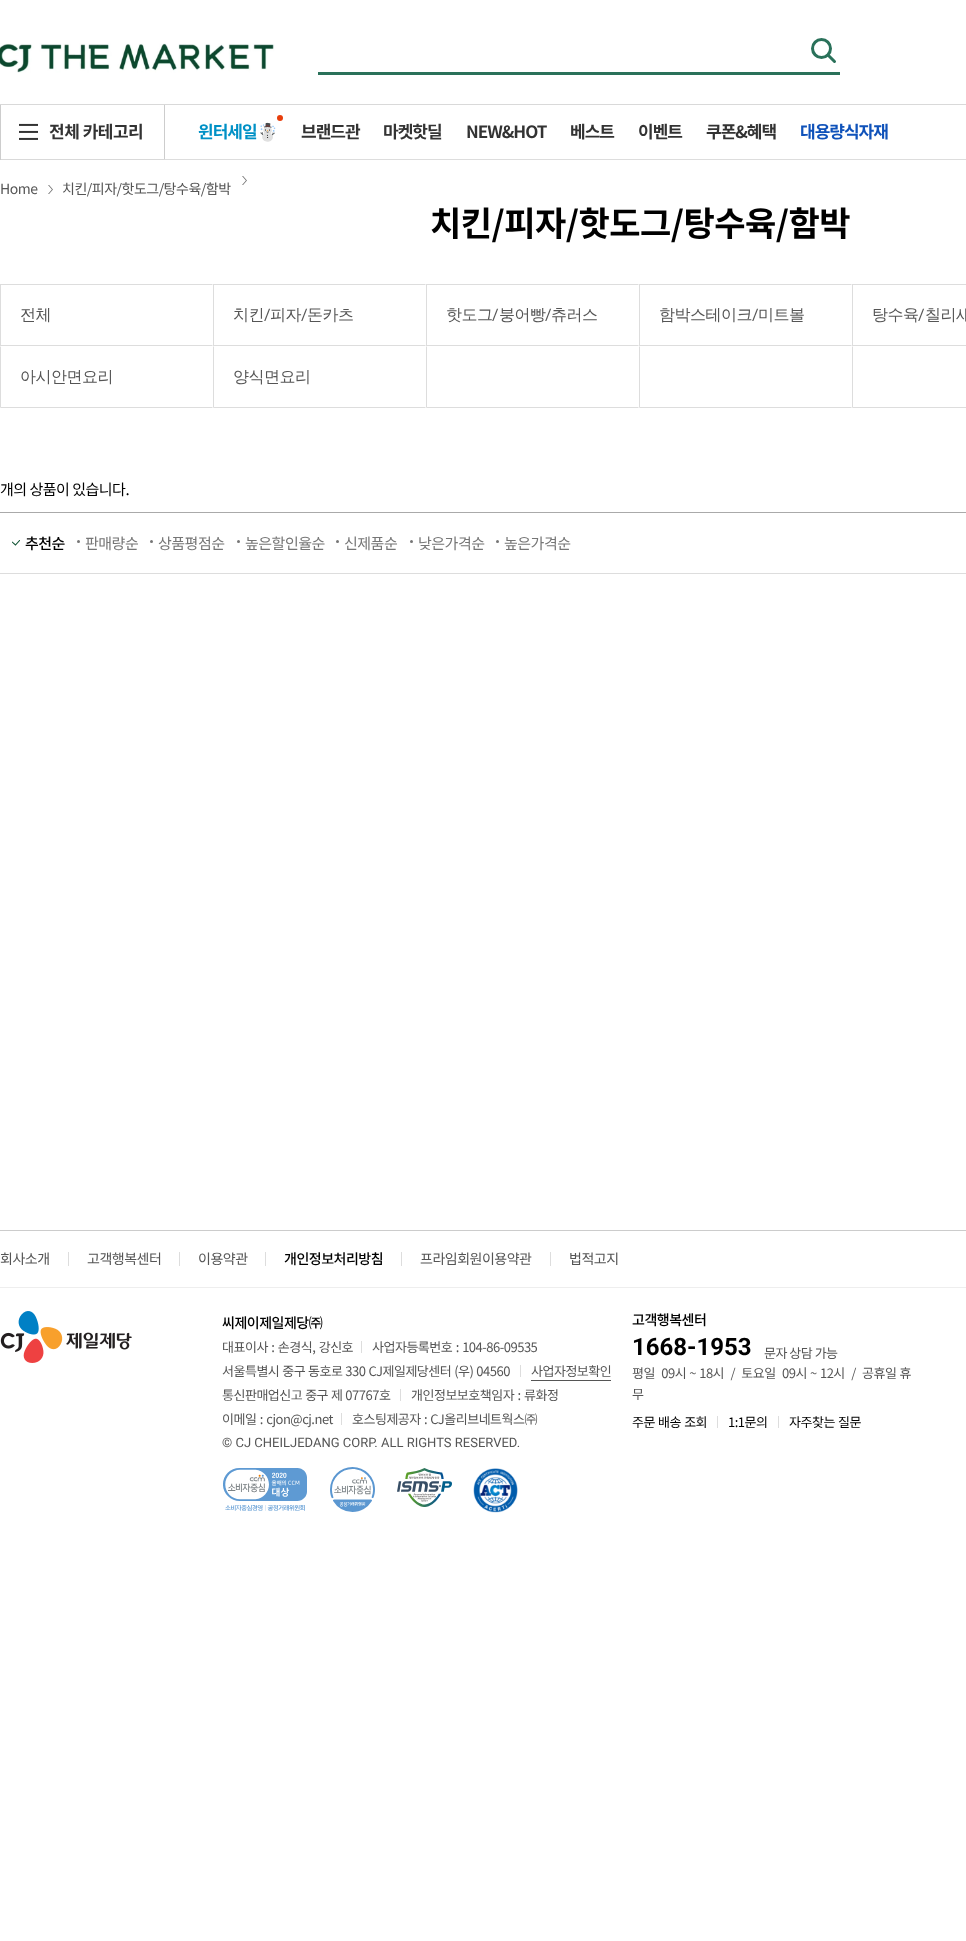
async function draw(canvas) {
	canvas.width = 966;
	canvas.height = 1941;
	const c = canvas.getContext('2d');
	c.miterLimit = 4;
	c.fontKerning = 'normal';
	async function loadImage(src) {
		const img = new Image();
		img.src = src;
		await img.decode();
		return img;
	}

	c.fillStyle = '#fff';
	c.fillRect(0, 0, 966, 1941);
	c.fillStyle = '#d9d9d9';
	c.fillRect(0, 104, 966, 1);
	c.drawImage(await loadImage('img1.png'), 0, 43, 275, 30);
	c.beginPath();
	c.moveTo(828.5, 55.5);
	c.lineTo(834.5, 61.5);
	c.strokeStyle = '#2a715a';
	c.lineWidth = 3;
	c.lineCap = 'round';
	c.stroke();
	c.beginPath();
	c.arc(821.5, 48.5, 9, 0, 2 * Math.PI);
	c.stroke();
	for (const [x, y, w, h, color] of [
		[318, 72, 522, 3, '#2a715a'],
		[165, 159, 801, 1, '#ddd'],
		[164, 105, 1, 55, '#cdcdcd'],
		[0, 159, 165, 1, '#d9d9d9'],
		[0, 105, 1, 55, '#cdcdcd'],
	]) {
		c.fillStyle = color;
		c.fillRect(x, y, w, h);
	}
	c.drawImage(await loadImage('img2.png'), 19, 123, 19, 17);
	c.letterSpacing = '-0.5px';
	c.font = 'bold 17px Noto Sans KR';
	c.fillStyle = '#333';
	c.fillText('전체 카테고리', 49, 138);
	c.fillStyle = '#e83e0c';
	c.beginPath();
	c.arc(280, 118, 3, 0, 2 * Math.PI);
	c.fill();
	c.letterSpacing = '-1px';
	c.fillStyle = '#0091c6';
	c.fillText('윈터세일', 198, 138);
	c.font = 'bold 17px Noto Color Emoji';
	c.fillText('☃️', 257, 138);
	c.font = 'bold 17px Noto Sans KR';
	c.fillStyle = '#333';
	for (const [text, x, y] of [
		['브랜드관', 301, 138],
		['마켓핫딜', 383, 138],
		['NEW&HOT', 466, 138],
		['베스트', 570, 138],
		['이벤트', 638, 138],
		['쿠폰&혜택', 706, 138],
	]) {
		c.fillText(text, x, y);
	}
	c.fillStyle = '#0f52ba';
	c.fillText('대용량식자재', 800, 138);
	c.drawImage(await loadImage('img3.png'), 242, 176, 5, 9);
	c.letterSpacing = '-0.5px';
	c.font = '14px Noto Sans KR';
	c.fillStyle = '#555';
	c.fillText('Home', 0, 194);
	c.drawImage(await loadImage('img3.png'), 48, 185, 5, 9);
	c.fillText('치킨/피자/핫도그/탕수육/함박', 62, 194);
	c.font = 'bold 34px Noto Sans KR';
	c.fillStyle = '#000';
	c.fillText('치킨/피자/핫도그/탕수육/함박', 430, 236);
	c.fillStyle = '#ddd';
	c.beginPath();
	c.moveTo(0, 284);
	c.lineTo(213, 284);
	c.lineTo(212, 285);
	c.lineTo(1, 285);
	c.closePath();
	c.fill();
	c.beginPath();
	c.moveTo(213, 346);
	c.lineTo(0, 346);
	c.lineTo(1, 345);
	c.lineTo(212, 345);
	c.closePath();
	c.fill();
	c.fillRect(0, 284, 1, 62);
	c.font = '500 16px WenQuanYi Zen Hei';
	c.fillStyle = '#555';
	c.fillText('전체', 20, 320);
	c.fillStyle = '#ddd';
	c.beginPath();
	c.moveTo(213, 284);
	c.lineTo(426, 284);
	c.lineTo(425, 285);
	c.lineTo(214, 285);
	c.closePath();
	c.fill();
	c.beginPath();
	c.moveTo(426, 346);
	c.lineTo(213, 346);
	c.lineTo(214, 345);
	c.lineTo(425, 345);
	c.closePath();
	c.fill();
	c.fillRect(213, 284, 1, 62);
	c.fillStyle = '#555';
	c.fillText('치킨', 233, 320);
	c.font = '16px Roboto';
	c.fillText('/', 264, 320);
	c.font = '500 16px WenQuanYi Zen Hei';
	c.fillText('피자', 270, 320);
	c.font = '16px Roboto';
	c.fillText('/', 301, 320);
	c.font = '500 16px WenQuanYi Zen Hei';
	c.fillText('돈카츠', 307, 320);
	c.fillStyle = '#ddd';
	c.beginPath();
	c.moveTo(426, 284);
	c.lineTo(639, 284);
	c.lineTo(638, 285);
	c.lineTo(427, 285);
	c.closePath();
	c.fill();
	c.beginPath();
	c.moveTo(639, 346);
	c.lineTo(426, 346);
	c.lineTo(427, 345);
	c.lineTo(638, 345);
	c.closePath();
	c.fill();
	c.fillRect(426, 284, 1, 62);
	c.fillStyle = '#555';
	c.fillText('핫도그', 446, 320);
	c.font = '16px Roboto';
	c.fillText('/', 492, 320);
	c.font = '500 16px WenQuanYi Zen Hei';
	c.fillText('붕어빵', 499, 320);
	c.font = '16px Roboto';
	c.fillText('/', 545, 320);
	c.font = '500 16px WenQuanYi Zen Hei';
	c.fillText('츄러스', 551, 320);
	c.fillStyle = '#ddd';
	c.beginPath();
	c.moveTo(639, 284);
	c.lineTo(852, 284);
	c.lineTo(851, 285);
	c.lineTo(640, 285);
	c.closePath();
	c.fill();
	c.beginPath();
	c.moveTo(852, 346);
	c.lineTo(639, 346);
	c.lineTo(640, 345);
	c.lineTo(851, 345);
	c.closePath();
	c.fill();
	c.fillRect(639, 284, 1, 62);
	c.fillStyle = '#555';
	c.fillText('함박스테이크', 659, 320);
	c.font = '16px Roboto';
	c.fillText('/', 752, 320);
	c.font = '500 16px WenQuanYi Zen Hei';
	c.fillText('미트볼', 758, 320);
	c.fillStyle = '#ddd';
	c.beginPath();
	c.moveTo(852, 284);
	c.lineTo(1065, 284);
	c.lineTo(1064, 285);
	c.lineTo(853, 285);
	c.closePath();
	c.fill();
	c.beginPath();
	c.moveTo(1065, 346);
	c.lineTo(852, 346);
	c.lineTo(853, 345);
	c.lineTo(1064, 345);
	c.closePath();
	c.fill();
	c.fillRect(852, 284, 1, 62);
	c.fillStyle = '#555';
	c.fillText('탕수육', 872, 320);
	c.font = '16px Roboto';
	c.fillText('/', 918, 320);
	c.font = '500 16px WenQuanYi Zen Hei';
	c.fillText('칠리새', 925, 320);
	c.fillStyle = '#ddd';
	c.beginPath();
	c.moveTo(213, 408);
	c.lineTo(0, 408);
	c.lineTo(1, 407);
	c.lineTo(212, 407);
	c.closePath();
	c.fill();
	c.beginPath();
	c.moveTo(0, 408);
	c.lineTo(0, 346);
	c.lineTo(1, 347);
	c.lineTo(1, 407);
	c.closePath();
	c.fill();
	c.fillStyle = '#555';
	c.fillText('아시안면요리', 20, 382);
	c.fillStyle = '#ddd';
	c.beginPath();
	c.moveTo(426, 408);
	c.lineTo(213, 408);
	c.lineTo(214, 407);
	c.lineTo(425, 407);
	c.closePath();
	c.fill();
	c.beginPath();
	c.moveTo(213, 408);
	c.lineTo(213, 346);
	c.lineTo(214, 347);
	c.lineTo(214, 407);
	c.closePath();
	c.fill();
	c.fillStyle = '#555';
	c.fillText('양식면요리', 233, 382);
	c.fillStyle = '#ddd';
	c.beginPath();
	c.moveTo(639, 408);
	c.lineTo(426, 408);
	c.lineTo(427, 407);
	c.lineTo(638, 407);
	c.closePath();
	c.fill();
	c.beginPath();
	c.moveTo(426, 408);
	c.lineTo(426, 346);
	c.lineTo(427, 347);
	c.lineTo(427, 407);
	c.closePath();
	c.fill();
	c.beginPath();
	c.moveTo(852, 408);
	c.lineTo(639, 408);
	c.lineTo(640, 407);
	c.lineTo(851, 407);
	c.closePath();
	c.fill();
	c.beginPath();
	c.moveTo(639, 408);
	c.lineTo(639, 346);
	c.lineTo(640, 347);
	c.lineTo(640, 407);
	c.closePath();
	c.fill();
	c.beginPath();
	c.moveTo(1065, 408);
	c.lineTo(852, 408);
	c.lineTo(853, 407);
	c.lineTo(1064, 407);
	c.closePath();
	c.fill();
	c.beginPath();
	c.moveTo(852, 408);
	c.lineTo(852, 346);
	c.lineTo(853, 347);
	c.lineTo(853, 407);
	c.closePath();
	c.fill();
	c.font = '15px Noto Sans KR';
	c.fillStyle = '#000';
	c.fillText('개의 상품이 있습니다.', 0, 495);
	c.fillStyle = '#aaa';
	c.fillRect(0, 512, 966, 1);
	c.fillStyle = '#ddd';
	c.fillRect(0, 573, 966, 1);
	c.drawImage(await loadImage('img4.png'), 12, 540, 8, 6);
	c.font = '500 15px Noto Sans KR';
	c.fillStyle = '#000';
	c.fillText('추천순', 25, 549);
	c.fillStyle = '#767676';
	c.beginPath();
	c.arc(78.5, 541.5, 1.5, 0, 2 * Math.PI);
	c.fill();
	c.font = '15px Noto Sans KR';
	c.fillText('판매량순', 85, 549);
	c.beginPath();
	c.arc(151.5, 541.5, 1.5, 0, 2 * Math.PI);
	c.fill();
	c.fillText('상품평점순', 158, 549);
	c.beginPath();
	c.arc(238.5, 541.5, 1.5, 0, 2 * Math.PI);
	c.fill();
	c.fillText('높은할인율순', 245, 549);
	c.beginPath();
	c.arc(337.5, 541.5, 1.5, 0, 2 * Math.PI);
	c.fill();
	c.fillText('신제품순', 344, 549);
	c.beginPath();
	c.arc(411.5, 541.5, 1.5, 0, 2 * Math.PI);
	c.fill();
	c.fillText('낮은가격순', 418, 549);
	c.beginPath();
	c.arc(497.5, 541.5, 1.5, 0, 2 * Math.PI);
	c.fill();
	c.fillText('높은가격순', 504, 549);
	c.fillStyle = '#ccc';
	c.fillRect(0, 1230, 966, 1);
	c.fillStyle = '#eee';
	c.fillRect(0, 1287, 966, 1);
	c.font = '14px Noto Sans KR';
	c.fillStyle = '#555';
	c.fillText('회사소개', 0, 1264);
	c.fillStyle = '#ddd';
	c.fillRect(68, 1252, 1, 14);
	c.fillStyle = '#555';
	c.fillText('고객행복센터', 87, 1264);
	c.fillStyle = '#ddd';
	c.fillRect(179, 1252, 1, 14);
	c.fillStyle = '#555';
	c.fillText('이용약관', 198, 1264);
	c.fillStyle = '#ddd';
	c.fillRect(265, 1252, 1, 14);
	c.font = '500 14px Noto Sans KR';
	c.fillStyle = '#000';
	c.fillText('개인정보처리방침', 284, 1264);
	c.fillStyle = '#ddd';
	c.fillRect(401, 1252, 1, 14);
	c.font = '14px Noto Sans KR';
	c.fillStyle = '#555';
	c.fillText('프라임회원이용약관', 420, 1264);
	c.fillStyle = '#ddd';
	c.fillRect(550, 1252, 1, 14);
	c.fillStyle = '#555';
	c.fillText('법적고지', 569, 1264);
	c.drawImage(await loadImage('img5.png'), 0, 1311, 132, 52);
	c.font = '500 14px Noto Sans KR';
	c.fillStyle = '#000';
	c.fillText('씨제이제일제당㈜', 222, 1328);
	c.wordSpacing = '1px';
	c.font = '13px Noto Sans KR';
	c.fillStyle = '#555';
	c.fillText('대표이사 : 손경식, 강신호', 222, 1352);
	c.fillStyle = '#ddd';
	c.fillRect(361, 1341, 1, 12);
	c.fillStyle = '#555';
	c.fillText('사업자등록번호 : 104-86-09535', 372, 1352);
	c.wordSpacing = '0.5px';
	c.fillText('서울특별시 중구 동호로 330 CJ제일제당센터 (우) 04560', 222, 1376);
	c.fillStyle = '#ddd';
	c.fillRect(520, 1365, 1, 12);
	c.wordSpacing = '0px';
	c.fillStyle = '#555';
	c.fillText('사업자정보확인', 531, 1376);
	c.fillRect(531, 1380, 80, 1);
	c.wordSpacing = '0.5px';
	c.fillText('통신판매업신고 중구 제 07767호', 222, 1400);
	c.fillStyle = '#ddd';
	c.fillRect(400, 1389, 1, 12);
	c.wordSpacing = '1px';
	c.fillStyle = '#555';
	c.fillText('개인정보보호책임자 : 류화정', 411, 1400);
	c.fillText('이메일 : cjon@cj.net', 222, 1424);
	c.fillStyle = '#ddd';
	c.fillRect(341, 1413, 1, 12);
	c.wordSpacing = '0.75px';
	c.fillStyle = '#555';
	c.fillText('호스팅제공자 : CJ올리브네트웍스㈜', 352, 1424);
	c.letterSpacing = '0px';
	c.wordSpacing = '0px';
	c.font = '13px Roboto';
	c.fillText('© CJ CHEILJEDANG CORP. ALL RIGHTS RESERVED.', 222, 1447);
	c.drawImage(await loadImage('img6.png'), 223, 1468, 84, 43);
	c.drawImage(await loadImage('img7.png'), 330, 1467, 45, 45);
	c.drawImage(await loadImage('img8.png'), 397, 1468, 55, 39);
	c.drawImage(await loadImage('img9.png'), 473, 1468, 45, 45);
	c.letterSpacing = '-0.5px';
	c.font = '500 14px Noto Sans KR';
	c.fillStyle = '#000';
	c.fillText('고객행복센터', 632, 1325);
	c.letterSpacing = '0px';
	c.font = 'bold 24px Roboto';
	c.fillText('1668-1953', 632, 1355);
	c.letterSpacing = '-0.5px';
	c.font = '13px Noto Sans KR';
	c.fillStyle = '#555';
	c.fillText('문자 상담 가능', 764, 1358);
	c.wordSpacing = '0.75px';
	c.fillText('평일  09시 ~ 18시  /  토요일  09시 ~ 12시  /  공휴일 휴', 632, 1378);
	c.wordSpacing = '0px';
	c.fillText('무', 632, 1399);
	c.wordSpacing = '0.75px';
	c.fillStyle = '#000';
	c.fillText('주문 배송 조회', 632, 1427);
	c.fillStyle = '#ddd';
	c.fillRect(717, 1416, 1, 12);
	c.wordSpacing = '0px';
	c.fillStyle = '#000';
	c.fillText('1:1문의', 728, 1427);
	c.fillStyle = '#ddd';
	c.fillRect(778, 1416, 1, 12);
	c.wordSpacing = '0.75px';
	c.fillStyle = '#000';
	c.fillText('자주찾는 질문', 789, 1427);
}

draw(document.querySelector('canvas'));
